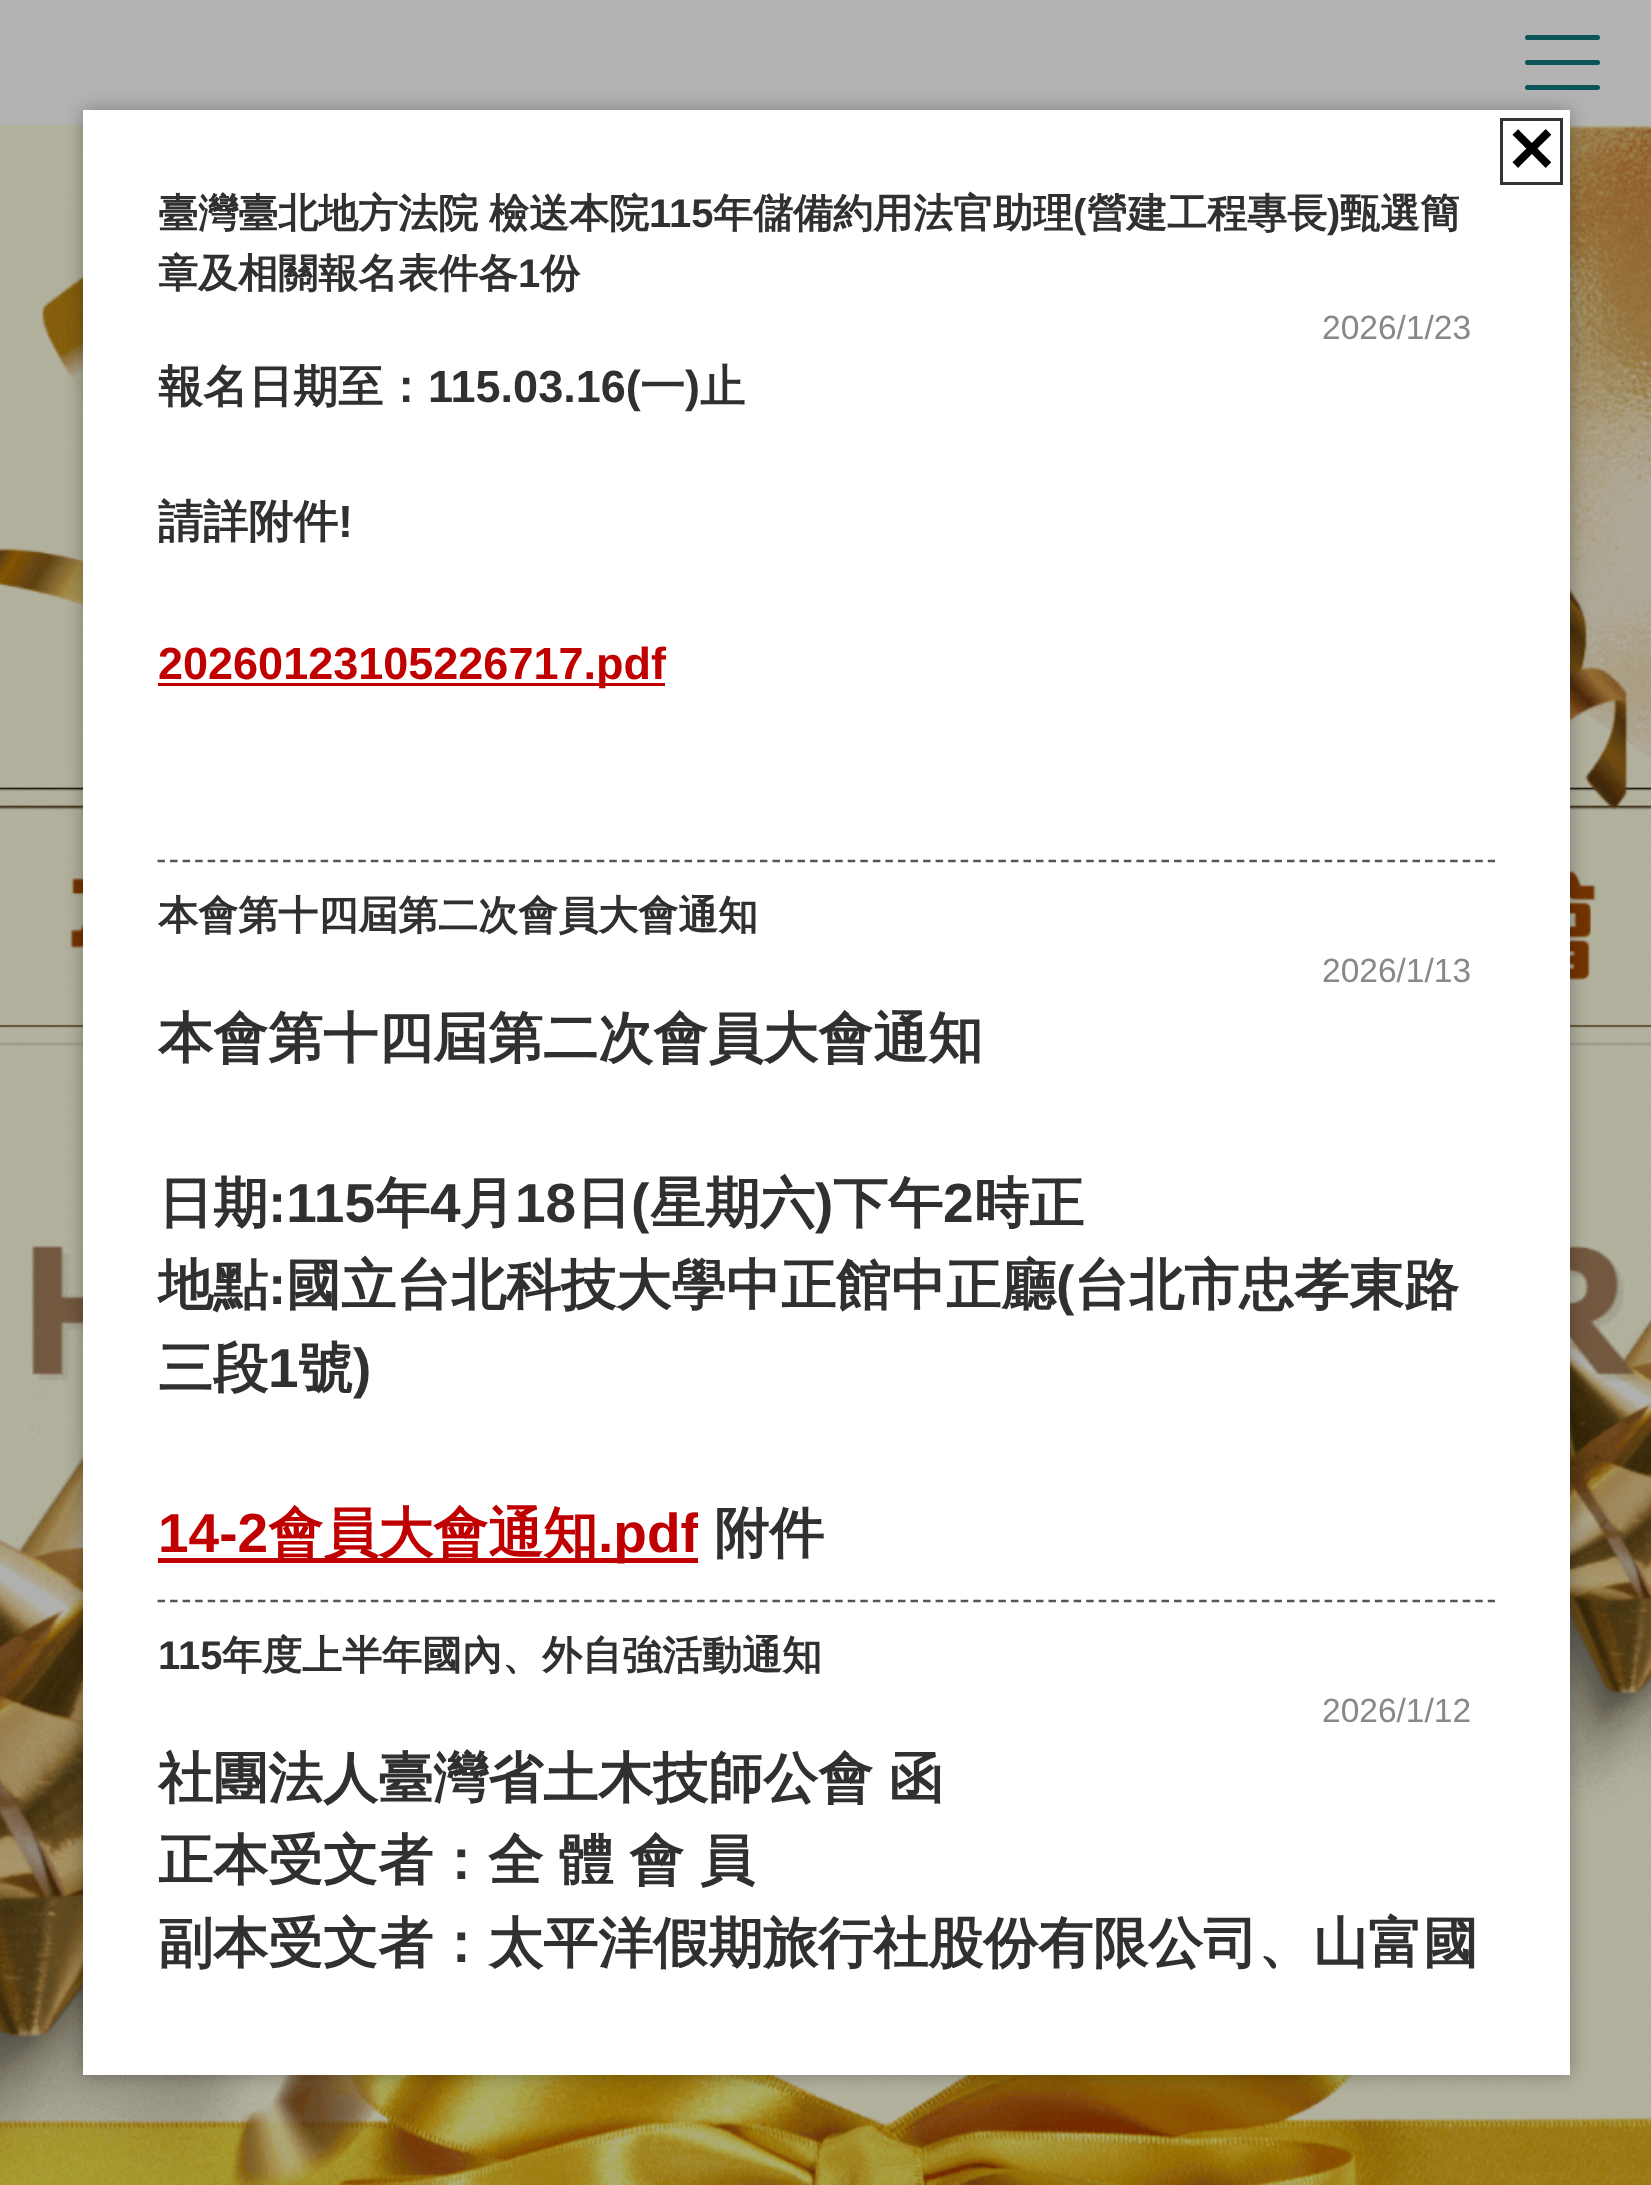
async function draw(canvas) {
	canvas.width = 1651;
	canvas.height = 2185;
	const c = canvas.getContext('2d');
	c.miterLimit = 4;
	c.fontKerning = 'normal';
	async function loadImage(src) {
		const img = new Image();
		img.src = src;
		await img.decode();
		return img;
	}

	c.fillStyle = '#b3b3b3';
	c.fillRect(0, 0, 1651, 2185);
	c.fillStyle = '#0b5558';
	c.beginPath();
	c.roundRect(1525, 60, 75, 5, 2.5);
	c.fill();
	c.beginPath();
	c.roundRect(1525, 35, 75, 5, 2.5);
	c.fill();
	c.beginPath();
	c.roundRect(1525, 85, 75, 5, 2.5);
	c.fill();
	c.drawImage(await loadImage('img1.png'), 0, 125, 1651, 2060);
	c.fillStyle = '#0000004d';
	c.filter = 'blur(9px)';
	c.beginPath();
	c.rect(83, 110, 1487, 1965);
	c.fill();
	c.filter = 'none';
	c.fillStyle = '#fff';
	c.fillRect(83, 110, 1487, 1965);
	c.strokeStyle = '#333';
	c.lineWidth = 3;
	c.strokeRect(1501.5, 119.5, 60, 64);
	c.font = 'bold 62px DejaVu Sans';
	c.fillStyle = '#000';
	c.fillText('✕', 1505, 172);
	c.wordSpacing = '-1px';
	c.font = 'bold 40px WenQuanYi Zen Hei';
	c.fillStyle = '#303030';
	c.fillText('臺灣臺北地方法院 檢送本院', 158, 227);
	c.wordSpacing = '0px';
	c.font = 'bold 40px Liberation Sans';
	c.fillText('115', 649, 227);
	c.font = 'bold 40px WenQuanYi Zen Hei';
	c.fillText('年儲備約用法官助理', 713, 227);
	c.font = 'bold 40px Liberation Sans';
	c.fillText('(', 1073, 227);
	c.font = 'bold 40px WenQuanYi Zen Hei';
	c.fillText('營建工程專長', 1087, 227);
	c.font = 'bold 40px Liberation Sans';
	c.fillText(')', 1327, 227);
	c.font = 'bold 40px WenQuanYi Zen Hei';
	c.fillText('甄選簡', 1340, 227);
	c.fillText('章及相關報名表件各', 158, 287);
	c.font = 'bold 40px Liberation Sans';
	c.fillText('1', 518, 287);
	c.font = 'bold 40px WenQuanYi Zen Hei';
	c.fillText('份', 540, 287);
	c.font = '33.5px Liberation Sans';
	c.fillStyle = '#888';
	c.fillText('2026/1/23', 1322, 339);
	c.font = 'bold 45px WenQuanYi Zen Hei';
	c.fillStyle = '#303030';
	c.fillText('報名日期至：', 158, 402);
	c.font = 'bold 45px Liberation Sans';
	c.fillText('115.03.16(', 428, 402);
	c.font = 'bold 45px WenQuanYi Zen Hei';
	c.fillText('一', 640, 402);
	c.font = 'bold 45px Liberation Sans';
	c.fillText(')', 685, 402);
	c.font = 'bold 45px WenQuanYi Zen Hei';
	c.fillText('止', 700, 402);
	c.fillText('請詳附件', 158, 537);
	c.font = 'bold 45px Liberation Sans';
	c.fillText('!', 338, 537);
	c.fillStyle = '#c00000';
	c.fillRect(158, 683, 507, 3);
	c.fillText('20260123105226717.pdf', 158, 679);
	c.beginPath();
	c.moveTo(157.5, 861);
	c.lineTo(1495, 861);
	c.strokeStyle = '#555';
	c.lineWidth = 2.5;
	c.setLineDash([7.5, 5.05]);
	c.stroke();
	c.font = 'bold 40px WenQuanYi Zen Hei';
	c.fillStyle = '#303030';
	c.fillText('本會第十四屆第二次會員大會通知', 158, 929);
	c.font = '33.5px Liberation Sans';
	c.fillStyle = '#888';
	c.fillText('2026/1/13', 1322, 982);
	c.font = 'bold 55px WenQuanYi Zen Hei';
	c.fillStyle = '#303030';
	c.fillText('本會第十四屆第二次會員大會通知', 158, 1057);
	c.fillText('日期', 158, 1222);
	c.font = 'bold 55px Liberation Sans';
	c.fillText(':115', 268, 1222);
	c.font = 'bold 55px WenQuanYi Zen Hei';
	c.fillText('年', 375, 1222);
	c.font = 'bold 55px Liberation Sans';
	c.fillText('4', 430, 1222);
	c.font = 'bold 55px WenQuanYi Zen Hei';
	c.fillText('月', 460, 1222);
	c.font = 'bold 55px Liberation Sans';
	c.fillText('18', 515, 1222);
	c.font = 'bold 55px WenQuanYi Zen Hei';
	c.fillText('日', 576, 1222);
	c.font = 'bold 55px Liberation Sans';
	c.fillText('(', 631, 1222);
	c.font = 'bold 55px WenQuanYi Zen Hei';
	c.fillText('星期六', 650, 1222);
	c.font = 'bold 55px Liberation Sans';
	c.fillText(')', 815, 1222);
	c.font = 'bold 55px WenQuanYi Zen Hei';
	c.fillText('下午', 833, 1222);
	c.font = 'bold 55px Liberation Sans';
	c.fillText('2', 943, 1222);
	c.font = 'bold 55px WenQuanYi Zen Hei';
	c.fillText('時正', 974, 1222);
	c.fillText('地點', 158, 1304);
	c.font = 'bold 55px Liberation Sans';
	c.fillText(':', 268, 1304);
	c.font = 'bold 55px WenQuanYi Zen Hei';
	c.fillText('國立台北科技大學中正館中正廳', 286, 1304);
	c.font = 'bold 55px Liberation Sans';
	c.fillText('(', 1056, 1304);
	c.font = 'bold 55px WenQuanYi Zen Hei';
	c.fillText('台北市忠孝東路', 1074, 1304);
	c.fillText('三段', 158, 1387);
	c.font = 'bold 55px Liberation Sans';
	c.fillText('1', 268, 1387);
	c.font = 'bold 55px WenQuanYi Zen Hei';
	c.fillText('號', 298, 1387);
	c.font = 'bold 55px Liberation Sans';
	c.fillText(')', 353, 1387);
	c.fillStyle = '#c00000';
	c.fillText('14-2', 158, 1552);
	c.fillRect(158, 1558, 540, 5);
	c.font = 'bold 55px WenQuanYi Zen Hei';
	c.fillText('會員大會通知', 268, 1552);
	c.font = 'bold 55px Liberation Sans';
	c.fillText('.pdf', 598, 1552);
	c.font = 'bold 55px WenQuanYi Zen Hei';
	c.fillStyle = '#303030';
	c.fillText('附件', 714, 1552);
	c.fillStyle = '#fff';
	c.fillRect(698, 1512, 1, 17);
	c.beginPath();
	c.moveTo(157.5, 1601);
	c.lineTo(1495, 1601);
	c.stroke();
	c.font = 'bold 40px Liberation Sans';
	c.fillStyle = '#303030';
	c.fillText('115', 158, 1669);
	c.font = 'bold 40px WenQuanYi Zen Hei';
	c.fillText('年度上半年國內、外自強活動通知', 222, 1669);
	c.font = '33.5px Liberation Sans';
	c.fillStyle = '#888';
	c.fillText('2026/1/12', 1322, 1722);
	c.wordSpacing = '-1px';
	c.font = 'bold 55px WenQuanYi Zen Hei';
	c.fillStyle = '#303030';
	c.fillText('社團法人臺灣省土木技師公會 函', 158, 1797);
	c.fillText('正本受文者：全 體 會 員', 158, 1879);
	c.wordSpacing = '0px';
	c.fillText('副本受文者：太平洋假期旅行社股份有限公司、山富國', 158, 1962);
}

draw(document.querySelector('canvas'));
